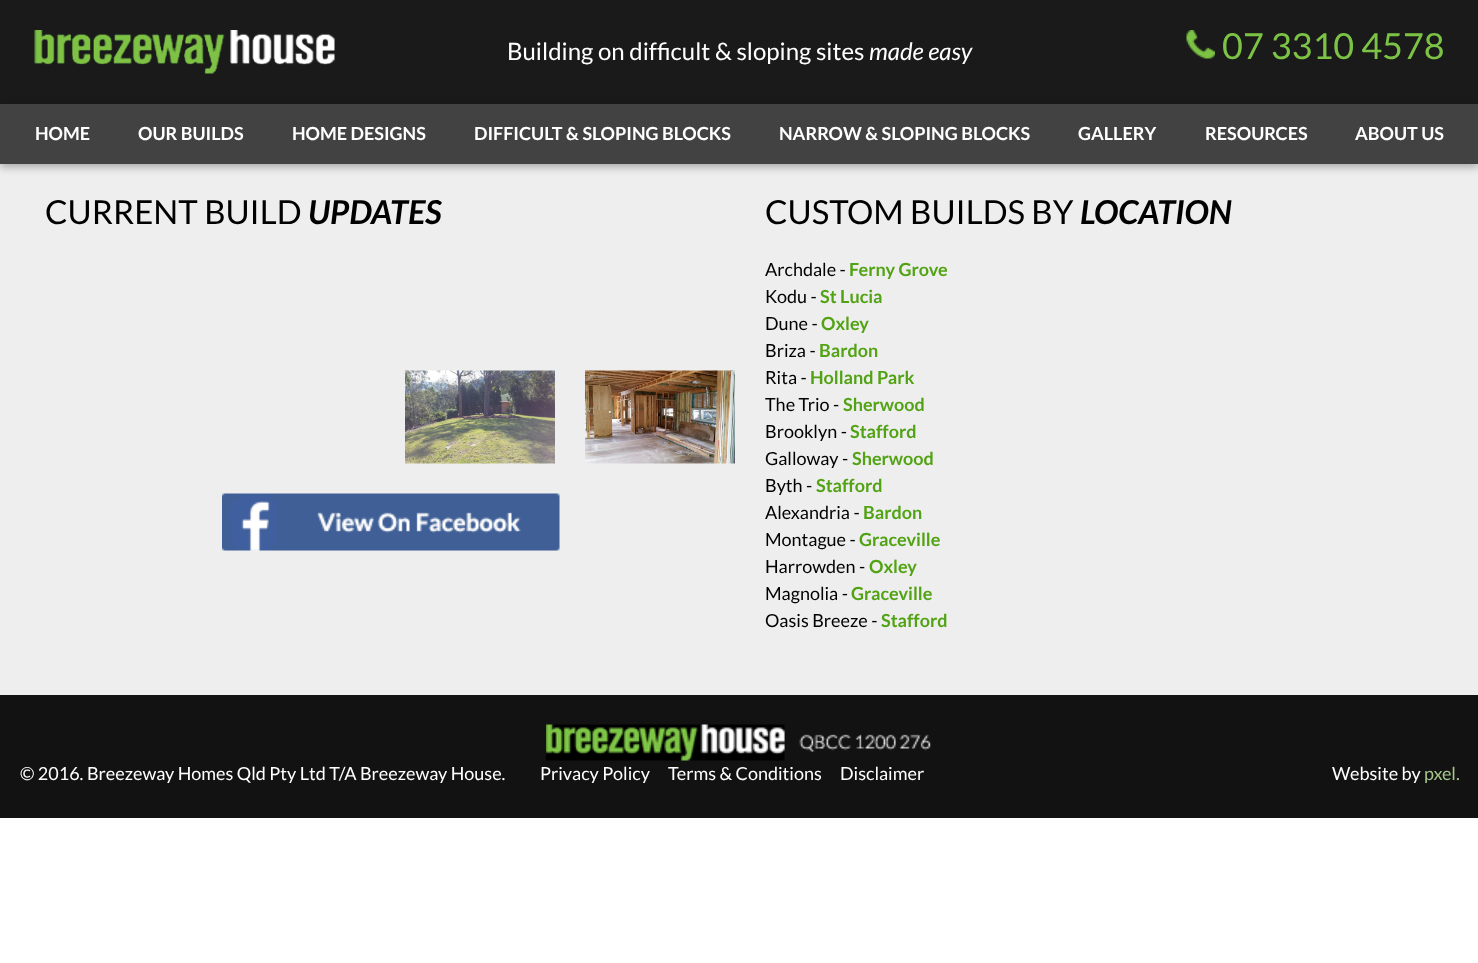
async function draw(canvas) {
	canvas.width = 1478;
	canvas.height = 963;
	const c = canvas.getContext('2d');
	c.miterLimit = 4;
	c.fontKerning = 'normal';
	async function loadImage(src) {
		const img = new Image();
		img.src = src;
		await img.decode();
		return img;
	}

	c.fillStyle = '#fff';
	c.fillRect(0, 0, 1478, 963);
	c.fillStyle = '#1a1a1a';
	c.fillRect(0, 0, 1478, 104);
	c.drawImage(await loadImage('img1.png'), 34, 30, 301, 44);
	c.font = '24px Lato';
	c.fillStyle = '#fff';
	c.fillText('Building on difficult & sloping sites', 507, 60);
	c.font = 'italic 24px Lato';
	c.fillText('made easy', 869, 60);
	c.drawImage(await loadImage('img2.png'), 1186, 30, 29, 29);
	c.font = '36px Lato';
	c.fillStyle = '#7cc345';
	c.fillText('07 3310 4578', 1222, 59);
	c.fillStyle = '#eee';
	c.fillRect(0, 164, 1478, 531);
	c.fillStyle = '#0000004d';
	c.filter = 'blur(4px)';
	c.beginPath();
	c.rect(0, 107, 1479, 60);
	c.fill();
	c.filter = 'none';
	c.fillStyle = '#424242';
	c.fillRect(0, 104, 1478, 60);
	c.font = 'bold 18px Lato';
	c.fillStyle = '#fff';
	for (const [text, x, y] of [
		['HOME', 35, 140],
		['OUR BUILDS', 138, 140],
		['HOME DESIGNS', 292, 140],
		['DIFFICULT & SLOPING BLOCKS', 474, 140],
		['NARROW & SLOPING BLOCKS', 779, 140],
		['GALLERY', 1078, 140],
		['RESOURCES', 1205, 140],
		['ABOUT US', 1355, 140],
	]) {
		c.fillText(text, x, y);
	}
	c.font = '33px Lato';
	c.fillStyle = '#000';
	c.fillText('CURRENT BUILD', 45, 224);
	c.font = 'italic bold 33px Lato';
	c.fillText('UPDATES', 308, 224);
	c.drawImage(await loadImage('img3.png'), 405, 370, 150, 94);
	c.drawImage(await loadImage('img4.png'), 585, 370, 150, 94);
	c.drawImage(await loadImage('img5.png'), 222, 493, 338, 58);
	c.font = '33px Lato';
	c.fillText('CUSTOM BUILDS BY', 765, 224);
	c.font = 'italic bold 33px Lato';
	c.fillText('LOCATION', 1080, 224);
	c.font = '18px Lato';
	c.fillText('Archdale -', 765, 276);
	c.font = 'bold 18px Lato';
	c.fillStyle = '#52a314';
	c.fillText('Ferny Grove', 849, 276);
	c.font = '18px Lato';
	c.fillStyle = '#000';
	c.fillText('Kodu -', 765, 303);
	c.font = 'bold 18px Lato';
	c.fillStyle = '#52a314';
	c.fillText('St Lucia', 820, 303);
	c.font = '18px Lato';
	c.fillStyle = '#000';
	c.fillText('Dune -', 765, 330);
	c.font = 'bold 18px Lato';
	c.fillStyle = '#52a314';
	c.fillText('Oxley', 821, 330);
	c.font = '18px Lato';
	c.fillStyle = '#000';
	c.fillText('Briza -', 765, 357);
	c.font = 'bold 18px Lato';
	c.fillStyle = '#52a314';
	c.fillText('Bardon', 819, 357);
	c.font = '18px Lato';
	c.fillStyle = '#000';
	c.fillText('Rita -', 765, 384);
	c.font = 'bold 18px Lato';
	c.fillStyle = '#52a314';
	c.fillText('Holland Park', 810, 384);
	c.font = '18px Lato';
	c.fillStyle = '#000';
	c.fillText('The Trio -', 765, 411);
	c.font = 'bold 18px Lato';
	c.fillStyle = '#52a314';
	c.fillText('Sherwood', 843, 411);
	c.font = '18px Lato';
	c.fillStyle = '#000';
	c.fillText('Brooklyn -', 765, 438);
	c.font = 'bold 18px Lato';
	c.fillStyle = '#52a314';
	c.fillText('Stafford', 850, 438);
	c.font = '18px Lato';
	c.fillStyle = '#000';
	c.fillText('Galloway -', 765, 465);
	c.font = 'bold 18px Lato';
	c.fillStyle = '#52a314';
	c.fillText('Sherwood', 852, 465);
	c.font = '18px Lato';
	c.fillStyle = '#000';
	c.fillText('Byth -', 765, 492);
	c.font = 'bold 18px Lato';
	c.fillStyle = '#52a314';
	c.fillText('Stafford', 816, 492);
	c.font = '18px Lato';
	c.fillStyle = '#000';
	c.fillText('Alexandria -', 765, 519);
	c.font = 'bold 18px Lato';
	c.fillStyle = '#52a314';
	c.fillText('Bardon', 863, 519);
	c.font = '18px Lato';
	c.fillStyle = '#000';
	c.fillText('Montague -', 765, 546);
	c.font = 'bold 18px Lato';
	c.fillStyle = '#52a314';
	c.fillText('Graceville', 859, 546);
	c.font = '18px Lato';
	c.fillStyle = '#000';
	c.fillText('Harrowden -', 765, 573);
	c.font = 'bold 18px Lato';
	c.fillStyle = '#52a314';
	c.fillText('Oxley', 869, 573);
	c.font = '18px Lato';
	c.fillStyle = '#000';
	c.fillText('Magnolia -', 765, 600);
	c.font = 'bold 18px Lato';
	c.fillStyle = '#52a314';
	c.fillText('Graceville', 851, 600);
	c.font = '18px Lato';
	c.fillStyle = '#000';
	c.fillText('Oasis Breeze -', 765, 627);
	c.font = 'bold 18px Lato';
	c.fillStyle = '#52a314';
	c.fillText('Stafford', 881, 627);
	c.fillStyle = '#121212';
	c.fillRect(0, 695, 1478, 123);
	c.drawImage(await loadImage('img6.png'), 546, 724, 385, 37);
	c.font = '18px Lato';
	c.fillStyle = '#fff';
	for (const [text, x, y] of [
		['© 2016. Breezeway Homes Qld Pty Ltd T/A Breezeway House.', 20, 780],
		['Privacy Policy', 540, 780],
		['Terms & Conditions', 668, 780],
		['Disclaimer', 840, 780],
		['Website by', 1332, 780],
	]) {
		c.fillText(text, x, y);
	}
	c.fillStyle = '#a5c58c';
	c.fillText('pxel.', 1424, 780);
}

draw(document.querySelector('canvas'));
